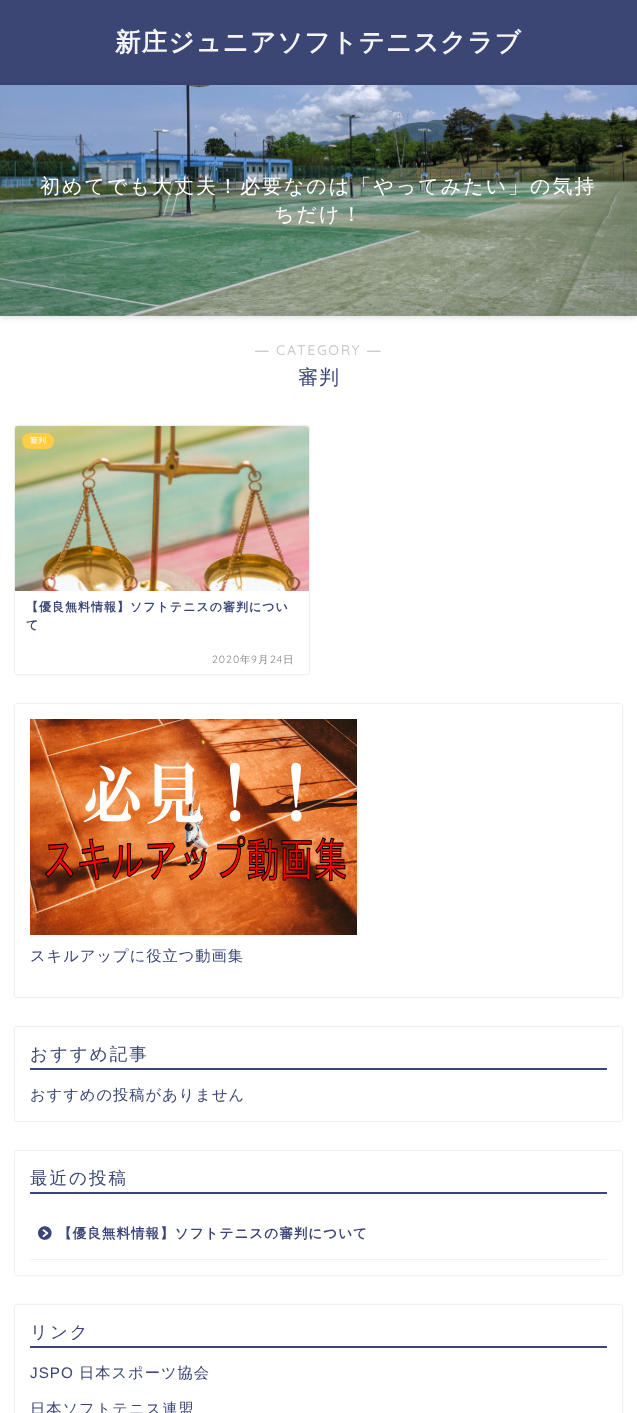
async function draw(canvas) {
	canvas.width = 637;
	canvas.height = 1413;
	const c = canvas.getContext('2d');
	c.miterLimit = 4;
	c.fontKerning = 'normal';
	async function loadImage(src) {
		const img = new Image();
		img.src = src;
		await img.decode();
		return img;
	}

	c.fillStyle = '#fff';
	c.fillRect(0, 0, 637, 1413);
	c.fillStyle = '#3b4675';
	c.fillRect(0, 0, 637, 85);
	c.letterSpacing = '1px';
	c.font = 'bold 25.6px WenQuanYi Zen Hei';
	c.fillStyle = '#f4f4f4';
	c.fillText('新庄ジュニアソフトテニスクラブ', 115, 51);
	c.fillStyle = '#00000026';
	c.filter = 'blur(3px)';
	c.beginPath();
	c.rect(0, 86, 637, 231);
	c.fill();
	c.filter = 'none';
	c.drawImage(await loadImage('img1.png'), 0, 85, 637, 231);
	c.letterSpacing = '2px';
	c.font = '500 20px WenQuanYi Zen Hei';
	c.fillStyle = '#fff';
	c.fillText('初めてでも大丈夫！必要なのは「やってみたい」の気持', 40, 193);
	c.fillText('ちだけ！', 274, 221);
	c.font = 'bold 13.6px Liberation Sans';
	c.fillStyle = '#ccc';
	c.fillText('―', 255, 355);
	c.font = 'bold 13.6px Quicksand';
	c.fillText('CATEGORY', 276, 355);
	c.font = 'bold 13.6px Liberation Sans';
	c.fillText('―', 367, 355);
	c.letterSpacing = '1px';
	c.font = '500 20px WenQuanYi Zen Hei';
	c.fillStyle = '#3b4675';
	c.fillText('審判', 298, 384);
	c.fillStyle = '#0000002e';
	c.filter = 'blur(1px)';
	c.beginPath();
	c.roundRect(15, 426, 294, 248, 2);
	c.fill();
	c.filter = 'none';
	c.fillStyle = '#fff';
	c.beginPath();
	c.roundRect(15, 426, 294, 248, 2);
	c.fill();
	c.drawImage(await loadImage('img2.png'), 15, 426, 294, 165);
	c.fillStyle = '#ffcd44';
	c.beginPath();
	c.roundRect(22, 433, 32, 16, 8);
	c.fill();
	c.letterSpacing = '0px';
	c.font = '500 8px WenQuanYi Zen Hei';
	c.fillStyle = '#fff';
	c.fillText('審判', 30, 443);
	c.letterSpacing = '1px';
	c.font = 'bold 12px WenQuanYi Zen Hei';
	c.fillStyle = '#3b4675';
	c.fillText('【優良無料情報】ソフトテニスの審判につい', 26, 611);
	c.fillText('て', 26, 629);
	c.font = '300 10.5px Quicksand';
	c.fillStyle = '#888';
	c.fillText('2020', 212, 663);
	c.font = '500 10.5px WenQuanYi Zen Hei';
	c.fillText('年', 240, 663);
	c.font = '300 10.5px Quicksand';
	c.fillText('9', 251, 663);
	c.font = '500 10.5px WenQuanYi Zen Hei';
	c.fillText('月', 258, 663);
	c.font = '300 10.5px Quicksand';
	c.fillText('24', 270, 663);
	c.font = '500 10.5px WenQuanYi Zen Hei';
	c.fillText('日', 283, 663);
	c.fillStyle = '#0000002e';
	c.filter = 'blur(1px)';
	c.beginPath();
	c.roundRect(15, 704, 607, 293, 2);
	c.fill();
	c.filter = 'none';
	c.fillStyle = '#fff';
	c.beginPath();
	c.roundRect(15, 704, 607, 293, 2);
	c.fill();
	c.drawImage(await loadImage('img3.png'), 30, 719, 327, 216);
	c.font = '500 15.25px WenQuanYi Zen Hei';
	c.fillStyle = '#3b4675';
	c.fillText('スキルアップに役立つ動画集', 30, 961);
	c.fillStyle = '#0000002e';
	c.filter = 'blur(1px)';
	c.beginPath();
	c.roundRect(15, 1027, 607, 94, 2);
	c.fill();
	c.filter = 'none';
	c.fillStyle = '#fff';
	c.beginPath();
	c.roundRect(15, 1027, 607, 94, 2);
	c.fill();
	c.fillStyle = '#3b4675';
	c.fillRect(30, 1068, 577, 2);
	c.letterSpacing = '2px';
	c.font = '500 17.5px WenQuanYi Zen Hei';
	c.fillText('おすすめ記事', 30, 1060);
	c.letterSpacing = '1px';
	c.font = '500 15.25px WenQuanYi Zen Hei';
	c.fillText('おすすめの投稿がありません', 30, 1100);
	c.fillStyle = '#0000002e';
	c.filter = 'blur(1px)';
	c.beginPath();
	c.roundRect(15, 1151, 607, 124, 2);
	c.fill();
	c.filter = 'none';
	c.fillStyle = '#fff';
	c.beginPath();
	c.roundRect(15, 1151, 607, 124, 2);
	c.fill();
	c.fillStyle = '#3b4675';
	c.fillRect(30, 1192, 577, 2);
	c.letterSpacing = '2px';
	c.font = '500 17.5px WenQuanYi Zen Hei';
	c.fillText('最近の投稿', 30, 1184);
	c.fillStyle = '#f2f2f2';
	c.fillRect(30, 1259, 577, 1);
	c.drawImage(await loadImage('img4.png'), 38, 1226, 14, 14);
	c.letterSpacing = '1px';
	c.font = 'bold 13.6px WenQuanYi Zen Hei';
	c.fillStyle = '#3b4675';
	c.fillText('【優良無料情報】ソフトテニスの審判について', 58, 1238);
	c.fillStyle = '#0000002e';
	c.filter = 'blur(1px)';
	c.beginPath();
	c.roundRect(15, 1305, 607, 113, 2);
	c.fill();
	c.filter = 'none';
	c.fillStyle = '#fff';
	c.beginPath();
	c.roundRect(15, 1305, 607, 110, 2);
	c.fill();
	c.fillStyle = '#3b4675';
	c.fillRect(30, 1346, 577, 2);
	c.letterSpacing = '2px';
	c.font = '500 17.5px WenQuanYi Zen Hei';
	c.fillText('リンク', 30, 1338);
	c.letterSpacing = '1px';
	c.font = '15.25px Liberation Sans';
	c.fillText('JSPO', 30, 1378);
	c.font = '500 15.25px WenQuanYi Zen Hei';
	c.fillText('日本スポーツ協会', 79, 1378);
	c.fillText('日本ソフトテニス連盟', 30, 1414);
}

draw(document.querySelector('canvas'));
